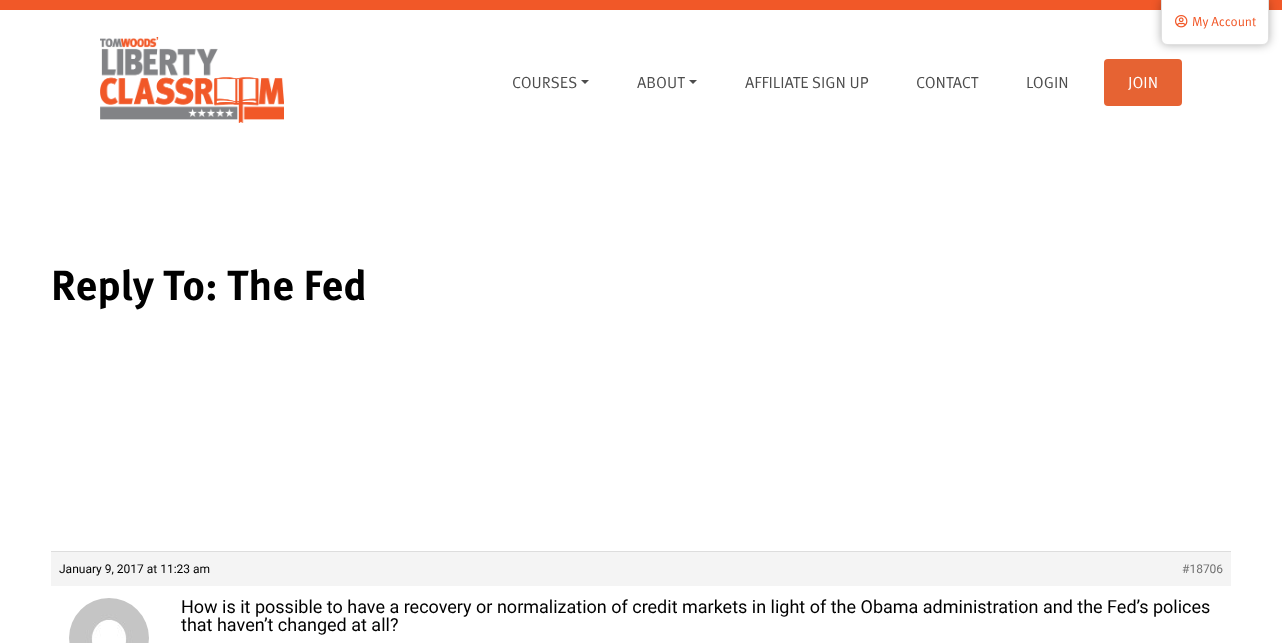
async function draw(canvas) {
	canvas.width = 1282;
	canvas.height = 643;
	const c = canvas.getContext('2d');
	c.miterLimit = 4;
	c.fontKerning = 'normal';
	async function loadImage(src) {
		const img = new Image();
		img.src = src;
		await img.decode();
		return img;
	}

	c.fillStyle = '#fff';
	c.fillRect(0, 0, 1282, 643);
	c.fillStyle = '#f15828';
	c.fillRect(0, 0, 1282, 10);
	c.drawImage(await loadImage('img1.png'), 100, 37, 184, 86);
	c.fillStyle = '#e66333';
	c.beginPath();
	c.roundRect(1104, 59, 78, 47, 4);
	c.fill();
	c.fillStyle = '#0000004d';
	c.filter = 'blur(5px)';
	c.beginPath();
	c.roundRect(1161, -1, 108, 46, 6);
	c.fill();
	c.filter = 'none';
	c.fillStyle = '#fff';
	c.beginPath();
	c.moveTo(1161.5, -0.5);
	c.lineTo(1268.5, -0.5);
	c.lineTo(1268.5, 39);
	c.bezierCurveTo(1268.5, 42, 1266, 44.5, 1263, 44.5);
	c.lineTo(1167, 44.5);
	c.bezierCurveTo(1164, 44.5, 1161.5, 42, 1161.5, 39);
	c.closePath();
	c.fill();
	c.strokeStyle = '#e0e0e0';
	c.stroke();
	c.drawImage(await loadImage('img2.png'), 1175, 15, 13, 13);
	c.font = '13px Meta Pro';
	c.fillStyle = '#f15828';
	c.fillText('My Account', 1192, 26);
	c.font = '16px Meta Pro';
	c.fillStyle = '#4d4d4d';
	c.fillText('COURSES', 512, 88);
	c.beginPath();
	c.moveTo(581, 80);
	c.lineTo(589, 80);
	c.lineTo(585, 84);
	c.closePath();
	c.fill();
	c.fillText('ABOUT', 637, 88);
	c.beginPath();
	c.moveTo(689, 80);
	c.lineTo(697, 80);
	c.lineTo(693, 84);
	c.closePath();
	c.fill();
	for (const [text, x, y] of [
		['AFFILIATE SIGN UP', 745, 88],
		['CONTACT', 916, 88],
		['LOGIN', 1026, 88],
	]) {
		c.fillText(text, x, y);
	}
	c.fillStyle = '#fff';
	c.fillText('JOIN', 1128, 88);
	c.font = 'bold 42px Meta Pro';
	c.fillStyle = '#000';
	c.fillText('Reply To: The Fed', 51, 300);
	c.fillStyle = '#f4f4f4';
	c.fillRect(51, 552, 1180, 34);
	c.fillStyle = '#ddd';
	c.fillRect(51, 551, 1180, 1);
	c.font = '12px Roboto';
	c.fillStyle = '#000';
	c.fillText('January 9, 2017 at 11:23 am', 59, 573);
	c.fillStyle = '#707070';
	c.fillText('#18706', 1182, 573);
	c.drawImage(await loadImage('img3.png'), 69, 598, 80, 45);
	c.font = '18px Roboto';
	c.fillStyle = '#000';
	c.fillText('How is it possible to have a recovery or normalization of credit markets in light of the Obama administration and the Fed’s polices', 181, 613);
	c.fillText('that haven’t changed at all?', 181, 631);
}

draw(document.querySelector('canvas'));
